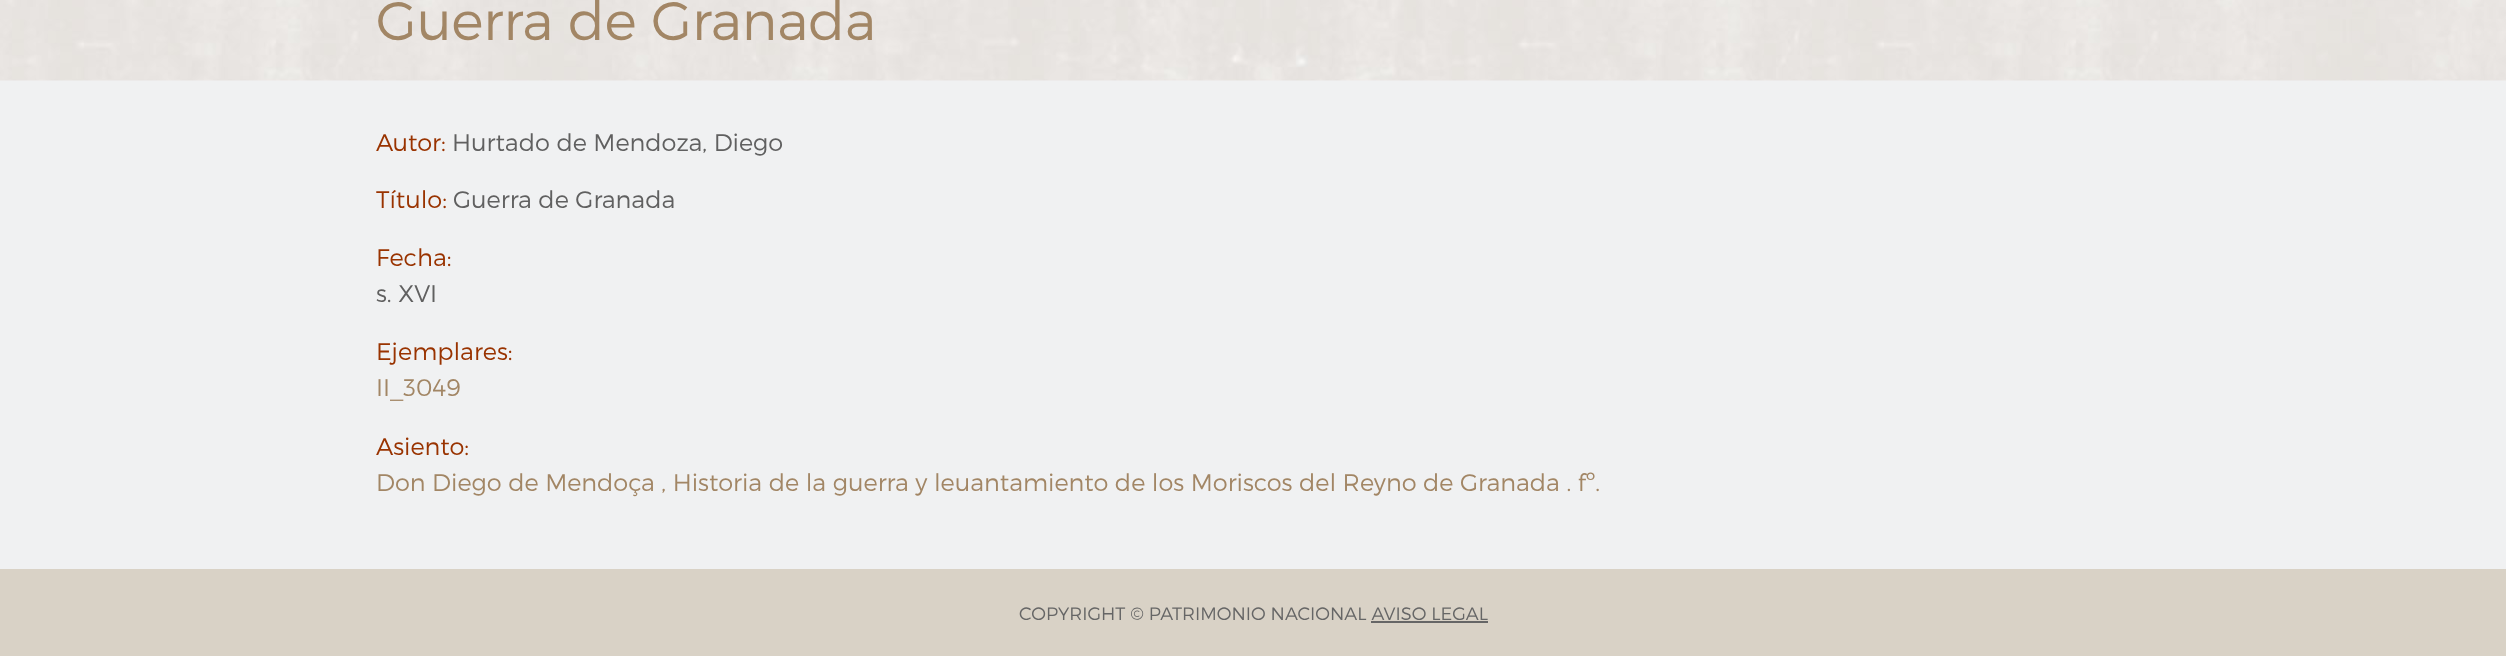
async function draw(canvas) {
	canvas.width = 2506;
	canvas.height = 656;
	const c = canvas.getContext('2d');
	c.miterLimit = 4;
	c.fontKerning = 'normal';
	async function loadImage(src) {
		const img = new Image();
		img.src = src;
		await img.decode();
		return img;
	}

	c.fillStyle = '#f0f1f2';
	c.fillRect(0, 0, 2506, 656);
	c.drawImage(await loadImage('img1.png'), 0, 0, 2506, 81);
	c.font = '300 54px Montserrat';
	c.fillStyle = '#a28665';
	c.fillText('Guerra de Granada', 376, 40);
	c.font = '300 24px Montserrat';
	c.fillStyle = '#930';
	c.fillText('Autor:', 376, 151);
	c.fillStyle = '#606060';
	c.fillText('Hurtado de Mendoza, Diego', 452, 151);
	c.fillStyle = '#930';
	c.fillText('Título:', 376, 208);
	c.fillStyle = '#606060';
	c.fillText('Guerra de Granada', 453, 208);
	c.fillStyle = '#930';
	c.fillText('Fecha:', 376, 266);
	c.fillStyle = '#606060';
	c.fillText('s. XVI', 376, 302);
	c.fillStyle = '#930';
	c.fillText('Ejemplares:', 376, 360);
	c.fillStyle = '#a28665';
	c.fillText('II_3049', 376, 396);
	c.fillStyle = '#930';
	c.fillText('Asiento:', 376, 455);
	c.fillStyle = '#a28665';
	c.fillText('Don Diego de Mendoça , Historia de la guerra y leuantamiento de los Moriscos del Reyno de Granada . fº.', 376, 491);
	c.fillStyle = '#d9d2c6';
	c.fillRect(0, 569, 2506, 87);
	c.font = '300 18px Montserrat';
	c.fillStyle = '#666';
	c.fillText('COPYRIGHT © PATRIMONIO NACIONAL AVISO LEGAL', 1019, 620);
	c.fillRect(1371, 621, 117, 2);
}

draw(document.querySelector('canvas'));
